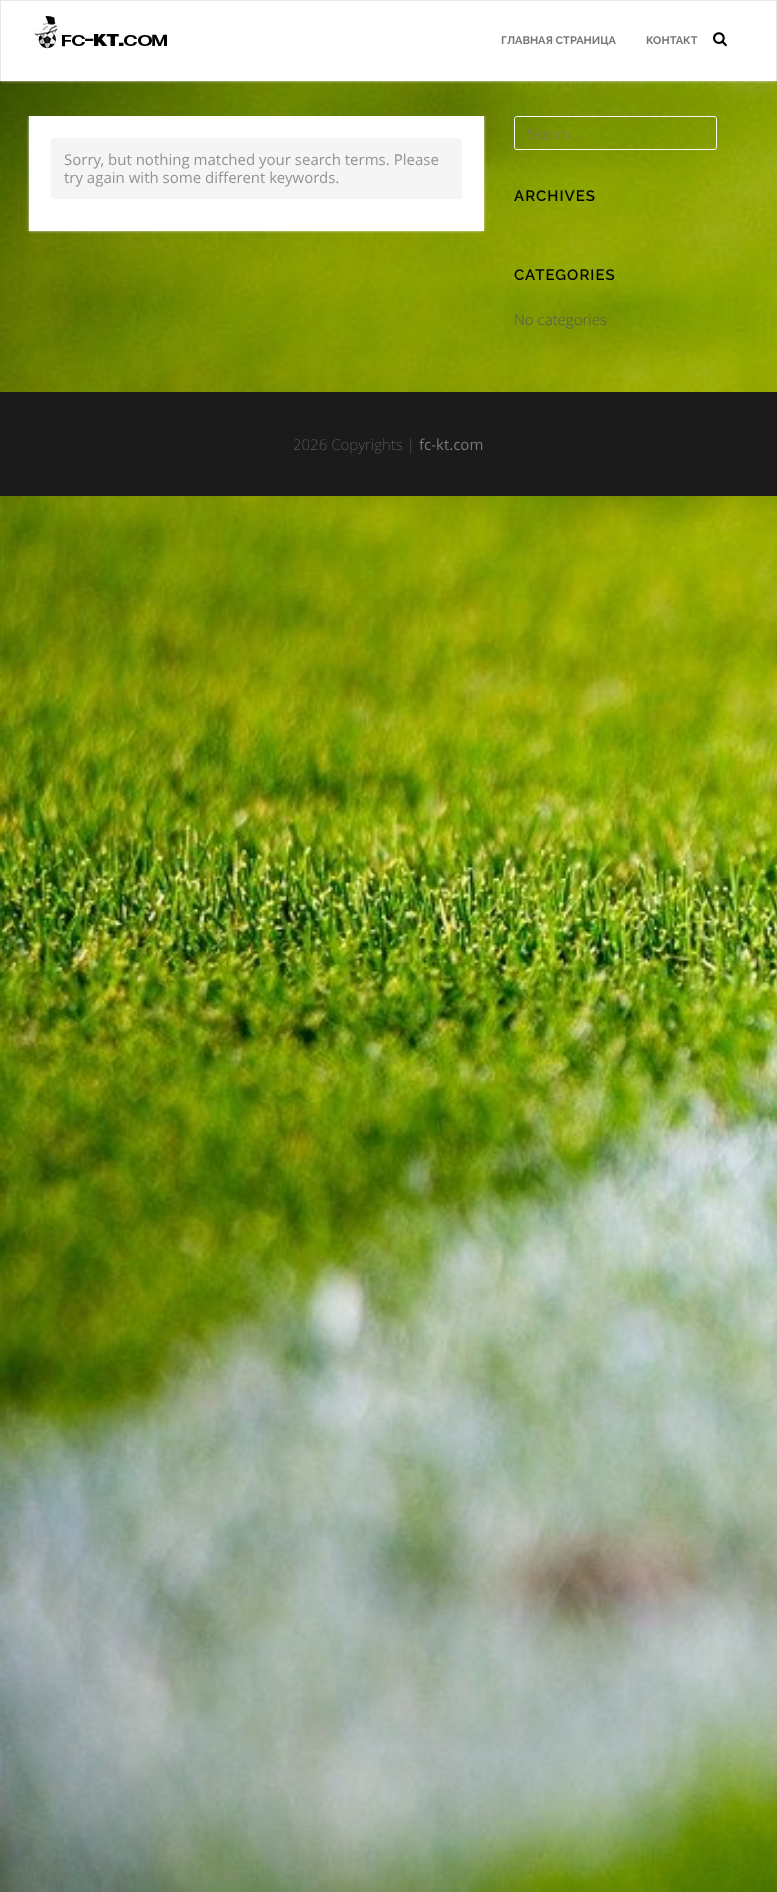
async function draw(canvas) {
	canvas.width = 777;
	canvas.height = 1892;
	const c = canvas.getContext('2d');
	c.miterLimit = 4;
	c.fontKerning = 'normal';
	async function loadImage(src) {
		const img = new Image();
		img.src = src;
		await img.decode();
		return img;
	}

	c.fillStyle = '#fff';
	c.fillRect(0, 0, 777, 1892);
	c.drawImage(await loadImage('img1.png'), 0, 81, 777, 1811);
	c.fillStyle = '#e1dede';
	c.filter = 'blur(1.5px)';
	c.beginPath();
	c.rect(0, 0, 777, 81);
	c.fill();
	c.filter = 'none';
	for (const [x, y, w, h, color] of [
		[1, 1, 775, 80, '#fff'],
		[0, 0, 777, 1, '#e7e7e7'],
		[776, 0, 1, 81, '#e7e7e7'],
		[0, 0, 1, 81, '#e7e7e7'],
	]) {
		c.fillStyle = color;
		c.fillRect(x, y, w, h);
	}
	c.drawImage(await loadImage('img2.png'), 34, 16, 133, 33);
	c.font = 'bold 11px Raleway';
	c.fillStyle = '#777';
	c.fillText('ГЛАВНАЯ СТРАНИЦА', 501, 44);
	c.fillText('КОНТАКТ', 646, 44);
	c.drawImage(await loadImage('img3.png'), 713, 32, 14, 15);
	c.save();
	c.beginPath();
	c.rect(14, 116, 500, 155);
	c.clip();
	c.fillStyle = '#e1dede';
	c.filter = 'blur(1.5px)';
	c.beginPath();
	c.rect(29, 116, 455, 115);
	c.fill();
	c.filter = 'none';
	c.restore();
	c.fillStyle = '#fff';
	c.fillRect(29, 116, 455, 115);
	c.fillStyle = '#f5f5f5';
	c.beginPath();
	c.roundRect(51, 138, 411, 61, 4);
	c.fill();
	c.font = '15px Open Sans';
	c.fillStyle = '#929292';
	c.fillText('Sorry, but nothing matched your search terms. Please', 64, 165);
	c.fillText('try again with some different keywords.', 64, 183);
	c.beginPath();
	c.roundRect(514.5, 116.5, 202, 33, 2.5);
	c.strokeStyle = '#f5f5f5';
	c.stroke();
	c.font = '300 14px Open Sans';
	c.fillStyle = '#777';
	c.fillText('Search …', 527, 139);
	c.letterSpacing = '1px';
	c.font = '600 15px Raleway';
	c.fillStyle = '#060606';
	c.fillText('ARCHIVES', 514, 201);
	c.fillText('CATEGORIES', 514, 280);
	c.letterSpacing = '0px';
	c.font = '300 15px Open Sans';
	c.fillStyle = '#555';
	c.fillText('No categories', 514, 325);
	c.fillStyle = '#1b1b1b';
	c.fillRect(0, 392, 777, 104);
	c.fillStyle = '#555';
	c.fillText('2026 Copyrights |', 293, 450);
	c.font = '15px Open Sans';
	c.fillStyle = '#777';
	c.fillText('fc-kt.com', 419, 450);
}

draw(document.querySelector('canvas'));
